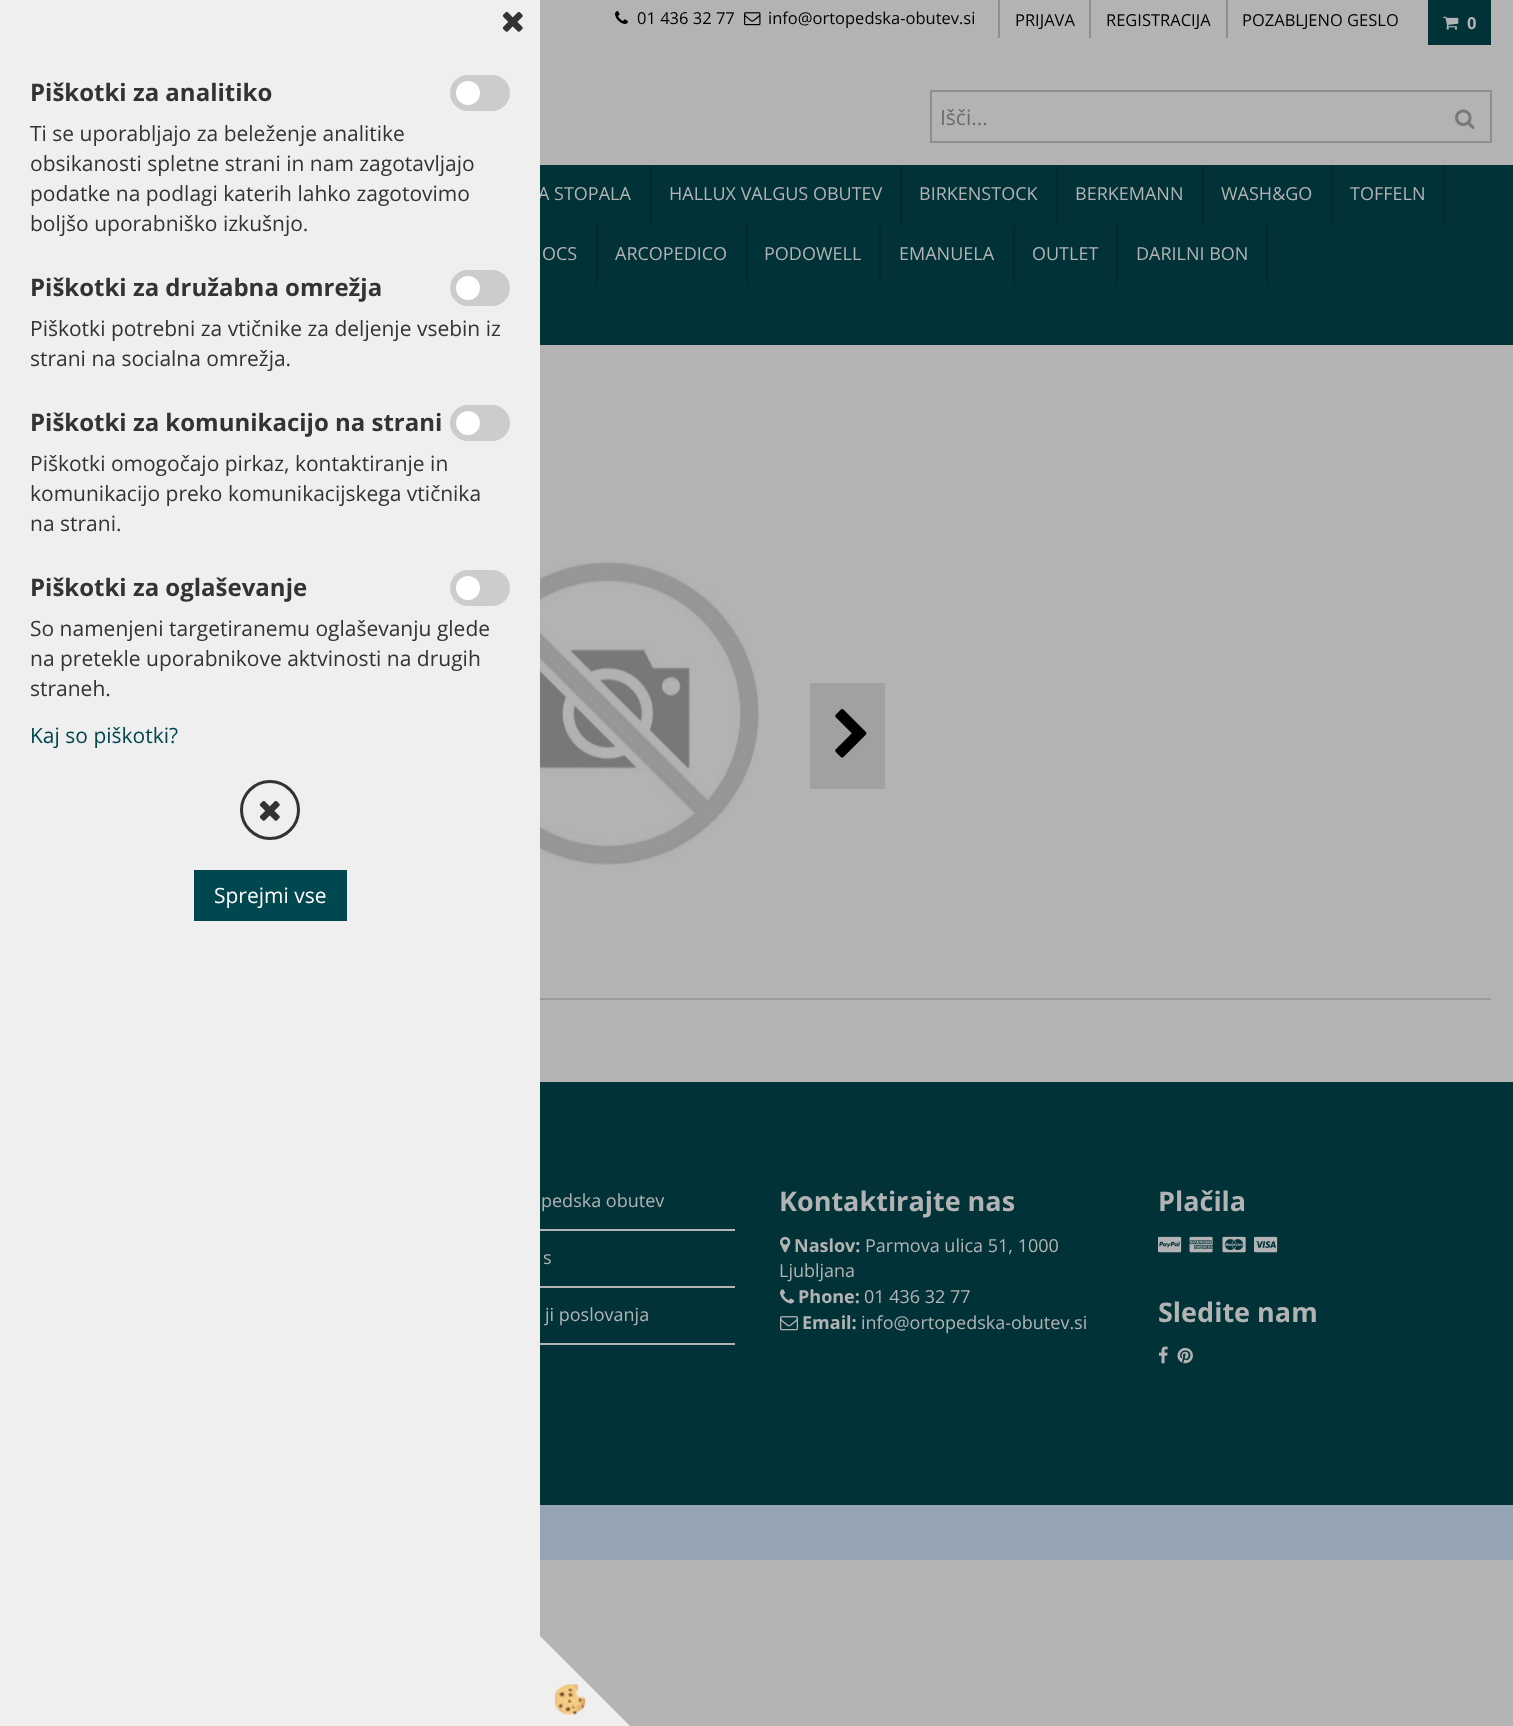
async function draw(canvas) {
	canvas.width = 1513;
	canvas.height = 1726;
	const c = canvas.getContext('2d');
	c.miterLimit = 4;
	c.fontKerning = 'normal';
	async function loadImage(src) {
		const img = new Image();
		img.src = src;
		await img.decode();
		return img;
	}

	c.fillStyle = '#b3b3b3';
	c.fillRect(0, 0, 1513, 1726);
	c.fillStyle = '#003238';
	c.fillRect(540, 165, 973, 180);
	c.font = '18px Open Sans';
	c.fillStyle = '#b3b3b3';
	c.fillText('A STOPALA', 538, 200);
	c.fillStyle = '#efefef';
	c.fillRect(0, 0, 540, 1726);
	c.drawImage(await loadImage('img1.png'), 502, 11, 21, 21);
	c.font = 'bold 24px Open Sans';
	c.fillStyle = '#333';
	c.fillText('Piškotki za analitiko', 30, 101);
	c.fillStyle = '#ccc';
	c.beginPath();
	c.roundRect(450, 75, 60, 36, 18);
	c.fill();
	c.fillStyle = '#fff';
	c.beginPath();
	c.arc(468, 93, 12, 0, 2 * Math.PI);
	c.fill();
	c.font = '21px Open Sans';
	c.fillStyle = '#333';
	for (const [text, x, y] of [
		['Ti se uporabljajo za beleženje analitike', 30, 141],
		['obsikanosti spletne strani in nam zagotavljajo', 30, 171],
		['podatke na podlagi katerih lahko zagotovimo', 30, 201],
		['boljšo uporabniško izkušnjo.', 30, 231],
	]) {
		c.fillText(text, x, y);
	}
	c.font = 'bold 24px Open Sans';
	c.fillText('Piškotki za družabna omrežja', 30, 296);
	c.fillStyle = '#ccc';
	c.beginPath();
	c.roundRect(450, 270, 60, 36, 18);
	c.fill();
	c.fillStyle = '#fff';
	c.beginPath();
	c.arc(468, 288, 12, 0, 2 * Math.PI);
	c.fill();
	c.font = '21px Open Sans';
	c.fillStyle = '#333';
	c.fillText('Piškotki potrebni za vtičnike za deljenje vsebin iz', 30, 336);
	c.fillText('strani na socialna omrežja.', 30, 366);
	c.font = 'bold 24px Open Sans';
	c.fillText('Piškotki za komunikacijo na strani', 30, 431);
	c.fillStyle = '#ccc';
	c.beginPath();
	c.roundRect(450, 405, 60, 36, 18);
	c.fill();
	c.fillStyle = '#fff';
	c.beginPath();
	c.arc(468, 423, 12, 0, 2 * Math.PI);
	c.fill();
	c.font = '21px Open Sans';
	c.fillStyle = '#333';
	for (const [text, x, y] of [
		['Piškotki omogočajo pirkaz, kontaktiranje in', 30, 471],
		['komunikacijo preko komunikacijskega vtičnika', 30, 501],
		['na strani.', 30, 531],
	]) {
		c.fillText(text, x, y);
	}
	c.font = 'bold 24px Open Sans';
	c.fillText('Piškotki za oglaševanje', 30, 596);
	c.fillStyle = '#ccc';
	c.beginPath();
	c.roundRect(450, 570, 60, 36, 18);
	c.fill();
	c.fillStyle = '#fff';
	c.beginPath();
	c.arc(468, 588, 12, 0, 2 * Math.PI);
	c.fill();
	c.font = '21px Open Sans';
	c.fillStyle = '#333';
	for (const [text, x, y] of [
		['So namenjeni targetiranemu oglaševanju glede', 30, 636],
		['na pretekle uporabnikove aktvinosti na drugih', 30, 666],
		['straneh.', 30, 696],
	]) {
		c.fillText(text, x, y);
	}
	c.fillStyle = '#004750';
	c.fillText('Kaj so piškotki?', 30, 743);
	c.beginPath();
	c.arc(270, 810, 28.5, 0, 2 * Math.PI);
	c.strokeStyle = '#333';
	c.lineWidth = 3;
	c.stroke();
	c.drawImage(await loadImage('img1.png'), 259, 800, 21, 21);
	c.fillRect(194, 870, 153, 51);
	c.fillStyle = '#fff';
	c.fillText('Sprejmi vse', 214, 903);
	c.fillStyle = '#efefef';
	c.beginPath();
	c.moveTo(630, 1726);
	c.lineTo(540, 1726);
	c.lineTo(540, 1636);
	c.closePath();
	c.fill();
	c.drawImage(await loadImage('img2.png'), 554, 1684, 32, 31);
	c.drawImage(await loadImage('img3.png'), 615, 11, 13, 13);
	c.font = '16.5px Open Sans';
	c.fillStyle = '#000';
	c.fillText('01 436 32 77', 637, 24);
	c.drawImage(await loadImage('img4.png'), 744, 12, 17, 14);
	c.fillText('info@ortopedska-obutev.si', 768, 24);
	c.fillStyle = '#8f8f8f';
	c.fillRect(998, 0, 2, 38);
	c.fillStyle = '#000';
	c.fillText('PRIJAVA', 1015, 26);
	c.fillStyle = '#8f8f8f';
	c.fillRect(1089, 0, 2, 38);
	c.fillStyle = '#000';
	c.fillText('REGISTRACIJA', 1106, 26);
	c.fillStyle = '#8f8f8f';
	c.fillRect(1226, 0, 2, 38);
	c.fillStyle = '#000';
	c.fillText('POZABLJENO GESLO', 1242, 26);
	c.fillStyle = '#003238';
	c.fillRect(1428, 0, 63, 45);
	c.drawImage(await loadImage('img5.png'), 1443, 16, 16, 14);
	c.font = 'bold 16.5px Open Sans';
	c.fillStyle = '#b3b3b3';
	c.fillText('0', 1467, 29);
	for (const [x, y, w, h, color] of [
		[930, 90, 561, 2, '#8f8f8f'],
		[1490, 90, 2, 53, '#8f8f8f'],
		[930, 141, 561, 2, '#8f8f8f'],
	]) {
		c.fillStyle = color;
		c.fillRect(x, y, w, h);
	}
	c.drawImage(await loadImage('img6.png'), 1455, 109, 20, 20);
	c.fillRect(930, 90, 2, 53);
	c.font = '21px Open Sans';
	c.fillStyle = '#6b6b6b';
	c.fillText('Išči...', 940, 125);
	c.fillStyle = '#012a2f';
	c.fillRect(650, 165, 2, 60);
	c.fillRect(900, 165, 2, 60);
	c.font = '18px Open Sans';
	c.fillStyle = '#b3b3b3';
	c.fillText('HALLUX VALGUS OBUTEV', 669, 200);
	c.fillStyle = '#012a2f';
	c.fillRect(1056, 165, 2, 60);
	c.fillStyle = '#b3b3b3';
	c.fillText('BIRKENSTOCK', 919, 200);
	c.fillStyle = '#012a2f';
	c.fillRect(1202, 165, 2, 60);
	c.fillStyle = '#b3b3b3';
	c.fillText('BERKEMANN', 1075, 200);
	c.fillStyle = '#012a2f';
	c.fillRect(1331, 165, 2, 60);
	c.fillStyle = '#b3b3b3';
	c.fillText('WASH&GO', 1221, 200);
	c.fillStyle = '#012a2f';
	c.fillRect(1443, 165, 2, 60);
	c.fillStyle = '#b3b3b3';
	c.fillText('TOFFELN', 1350, 200);
	c.fillStyle = '#012a2f';
	c.fillRect(596, 225, 2, 60);
	c.fillStyle = '#b3b3b3';
	c.fillText('OCS', 542, 260);
	c.fillStyle = '#012a2f';
	c.fillRect(746, 225, 2, 60);
	c.fillStyle = '#b3b3b3';
	c.fillText('ARCOPEDICO', 615, 260);
	c.fillStyle = '#012a2f';
	c.fillRect(879, 225, 2, 60);
	c.fillStyle = '#b3b3b3';
	c.fillText('PODOWELL', 764, 260);
	c.fillStyle = '#012a2f';
	c.fillRect(1013, 225, 2, 60);
	c.fillStyle = '#b3b3b3';
	c.fillText('EMANUELA', 899, 260);
	c.fillStyle = '#012a2f';
	c.fillRect(1116, 225, 2, 60);
	c.fillStyle = '#b3b3b3';
	c.fillText('OUTLET', 1032, 260);
	c.fillStyle = '#012a2f';
	c.fillRect(1266, 225, 2, 60);
	c.fillStyle = '#b3b3b3';
	c.fillText('DARILNI BON', 1136, 260);
	c.drawImage(await loadImage('img7.png'), 540, 562, 219, 303);
	c.fillStyle = '#a1a1a1';
	c.fillRect(810, 683, 75, 106);
	c.drawImage(await loadImage('img8.png'), 835, 709, 32, 49);
	for (const [x, y, w, h, color] of [
		[540, 998, 951, 2, '#9b9b9b'],
		[540, 1082, 973, 423, '#003238'],
		[540, 1229, 195, 2, '#b3b3b3'],
	]) {
		c.fillStyle = color;
		c.fillRect(x, y, w, h);
	}
	c.fillText('pedska obutev', 541, 1207);
	c.fillRect(540, 1286, 195, 2);
	c.fillText('s', 543, 1264);
	c.fillRect(540, 1343, 195, 2);
	c.fillText('ji poslovanja', 545, 1321);
	c.font = 'bold 27px Open Sans';
	c.fillText('Kontaktirajte nas', 779, 1211);
	c.drawImage(await loadImage('img9.png'), 780, 1236, 11, 17);
	c.font = 'bold 18px Open Sans';
	c.fillText('Naslov:', 794, 1252);
	c.font = '18px Open Sans';
	c.fillText('Parmova ulica 51, 1000', 865, 1252);
	c.fillText('Ljubljana', 779, 1277);
	c.drawImage(await loadImage('img10.png'), 780, 1289, 15, 15);
	c.font = 'bold 18px Open Sans';
	c.fillText('Phone:', 798, 1303);
	c.font = '18px Open Sans';
	c.fillText('01 436 32 77', 864, 1303);
	c.drawImage(await loadImage('img11.png'), 780, 1316, 18, 15);
	c.font = 'bold 18px Open Sans';
	c.fillText('Email:', 802, 1329);
	c.font = '18px Open Sans';
	c.fillText('info@ortopedska-obutev.si', 861, 1329);
	c.font = 'bold 27px Open Sans';
	c.fillText('Plačila', 1158, 1211);
	c.drawImage(await loadImage('img12.png'), 1158, 1236, 24, 17);
	c.drawImage(await loadImage('img13.png'), 1189, 1236, 24, 17);
	c.drawImage(await loadImage('img14.png'), 1222, 1236, 24, 17);
	c.drawImage(await loadImage('img15.png'), 1254, 1236, 24, 17);
	c.fillText('Sledite nam', 1158, 1322);
	c.drawImage(await loadImage('img16.png'), 1158, 1346, 10, 18);
	c.drawImage(await loadImage('img17.png'), 1177, 1347, 16, 17);
	c.fillStyle = '#94a4b3';
	c.fillRect(540, 1505, 973, 55);
}

draw(document.querySelector('canvas'));
